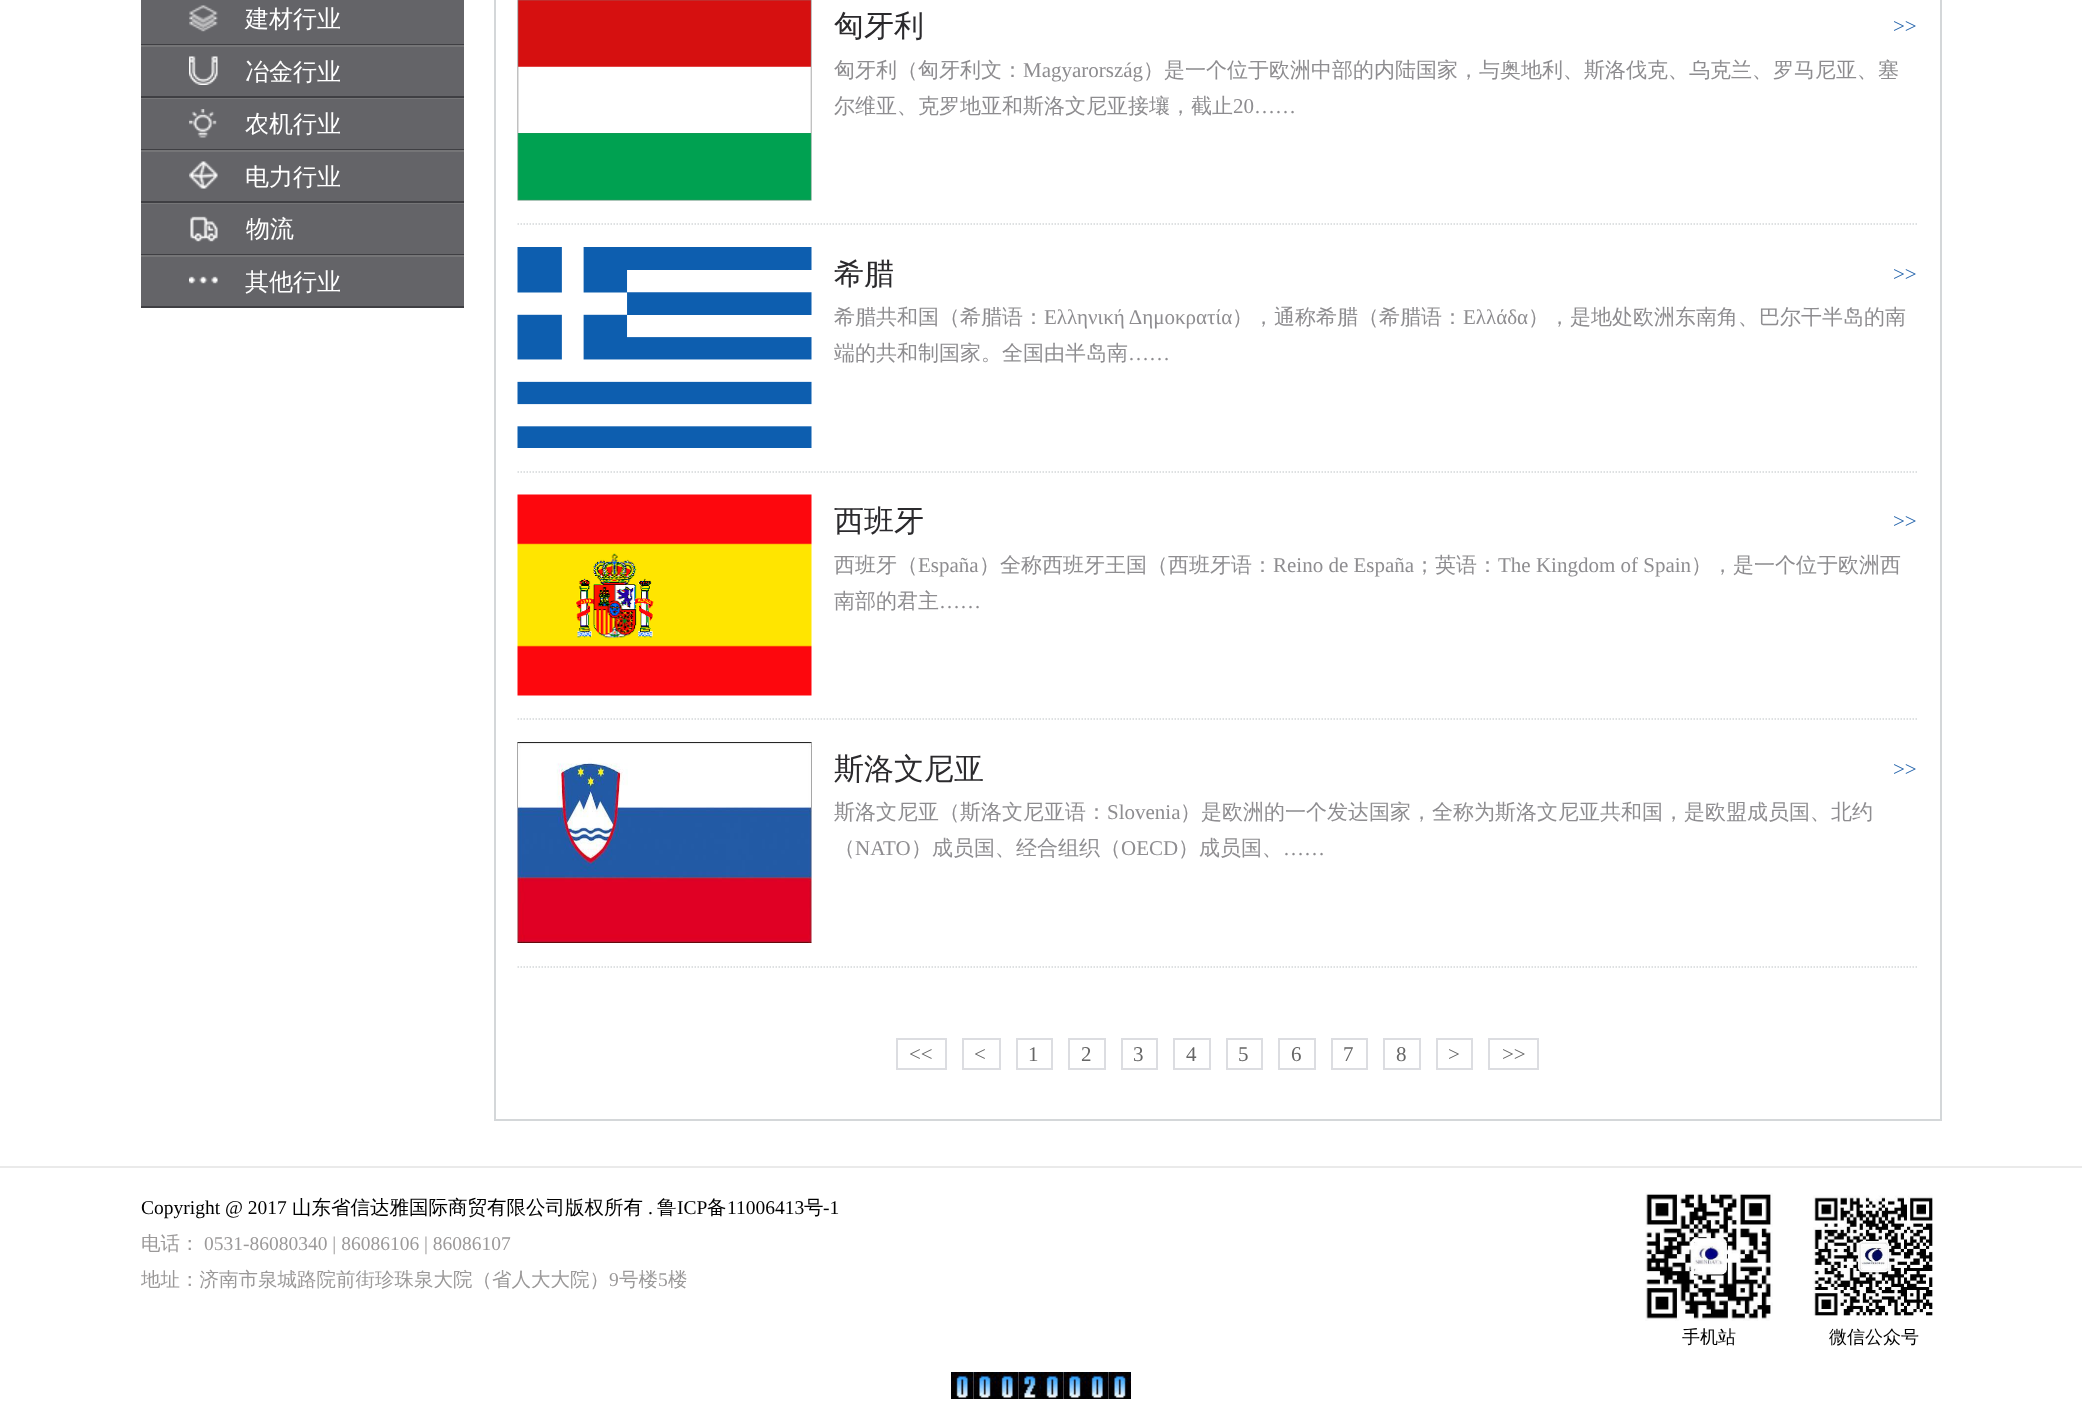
async function draw(canvas) {
	canvas.width = 2082;
	canvas.height = 1413;
	const c = canvas.getContext('2d');
	c.miterLimit = 4;
	c.fontKerning = 'normal';
	async function loadImage(src) {
		const img = new Image();
		img.src = src;
		await img.decode();
		return img;
	}

	c.fillStyle = '#fff';
	c.fillRect(0, 0, 2082, 1413);
	c.fillStyle = '#3f3f43';
	c.fillRect(141, 44, 323, 1);
	c.fillStyle = '#646468';
	c.fillRect(141, 0, 323, 44);
	c.drawImage(await loadImage('img1.png'), 189, 5, 29, 27);
	c.font = '500 24px WenQuanYi Zen Hei';
	c.fillStyle = '#fff';
	c.fillText('建材行业', 245, 27);
	for (const [x, y, w, h, color] of [
		[141, 45, 323, 2, '#757577'],
		[141, 96, 323, 2, '#3f3f43'],
		[141, 47, 323, 49, '#646468'],
	]) {
		c.fillStyle = color;
		c.fillRect(x, y, w, h);
	}
	c.drawImage(await loadImage('img2.png'), 189, 56, 29, 29);
	c.fillStyle = '#fff';
	c.fillText('冶金行业', 245, 80);
	for (const [x, y, w, h, color] of [
		[141, 98, 323, 1, '#757577'],
		[141, 149, 323, 1, '#3f3f43'],
		[141, 99, 323, 50, '#646468'],
	]) {
		c.fillStyle = color;
		c.fillRect(x, y, w, h);
	}
	c.drawImage(await loadImage('img3.png'), 189, 109, 28, 29);
	c.fillStyle = '#fff';
	c.fillText('农机行业', 245, 132);
	for (const [x, y, w, h, color] of [
		[141, 150, 323, 2, '#757577'],
		[141, 201, 323, 2, '#3f3f43'],
		[141, 152, 323, 49, '#646468'],
	]) {
		c.fillStyle = color;
		c.fillRect(x, y, w, h);
	}
	c.drawImage(await loadImage('img4.png'), 189, 161, 29, 28);
	c.fillStyle = '#fff';
	c.fillText('电力行业', 245, 185);
	for (const [x, y, w, h, color] of [
		[141, 203, 323, 1, '#757577'],
		[141, 254, 323, 1, '#3f3f43'],
		[141, 204, 323, 50, '#646468'],
	]) {
		c.fillStyle = color;
		c.fillRect(x, y, w, h);
	}
	c.drawImage(await loadImage('img5.png'), 190, 216, 28, 26);
	c.fillStyle = '#fff';
	c.fillText('物流', 246, 237);
	for (const [x, y, w, h, color] of [
		[141, 255, 323, 2, '#757577'],
		[141, 306, 323, 2, '#3f3f43'],
		[141, 257, 323, 49, '#646468'],
	]) {
		c.fillStyle = color;
		c.fillRect(x, y, w, h);
	}
	c.drawImage(await loadImage('img6.png'), 189, 276, 29, 8);
	c.fillStyle = '#fff';
	c.fillText('其他行业', 245, 290);
	for (const [x, y, w, h, color] of [
		[1940, 0, 2, 1121, '#d4d7d9'],
		[494, 1119, 1447, 2, '#d4d7d9'],
		[494, 0, 2, 1121, '#d4d7d9'],
	]) {
		c.fillStyle = color;
		c.fillRect(x, y, w, h);
	}
	c.beginPath();
	c.moveTo(517.5, 224);
	c.lineTo(1917, 224);
	c.strokeStyle = '#d4d7d9';
	c.lineWidth = 1.5;
	c.setLineDash([1.5, 1.5]);
	c.stroke();
	c.drawImage(await loadImage('img7.png'), 517, 0, 295, 201);
	c.font = '500 30px WenQuanYi Zen Hei';
	c.fillStyle = '#2b2a2d';
	c.fillText('匈牙利', 834, 36);
	c.font = '21px Liberation Serif';
	c.fillStyle = '#2665ac';
	c.fillText('>>', 1893, 33);
	c.font = '500 21px WenQuanYi Zen Hei';
	c.fillStyle = '#8e8d90';
	c.fillText('匈牙利（匈牙利文：', 834, 77);
	c.font = '21px Liberation Serif';
	c.fillText('Magyarország', 1023, 77);
	c.font = '500 21px WenQuanYi Zen Hei';
	c.fillText('）是一个位于欧洲中部的内陆国家，与奥地利、斯洛伐克、乌克兰、罗马尼亚、塞', 1143, 77);
	c.fillText('尔维亚、克罗地亚和斯洛文尼亚接壤，截止', 834, 113);
	c.font = '21px Liberation Serif';
	c.fillText('20……', 1233, 113);
	c.beginPath();
	c.moveTo(517.5, 472);
	c.lineTo(1917, 472);
	c.stroke();
	c.drawImage(await loadImage('img8.png'), 517, 247, 295, 201);
	c.font = '500 30px WenQuanYi Zen Hei';
	c.fillStyle = '#2b2a2d';
	c.fillText('希腊', 834, 284);
	c.font = '21px Liberation Serif';
	c.fillStyle = '#2665ac';
	c.fillText('>>', 1893, 281);
	c.font = '500 21px WenQuanYi Zen Hei';
	c.fillStyle = '#8e8d90';
	c.fillText('希腊共和国（希腊语：', 834, 324);
	c.font = '21px Liberation Serif';
	c.fillText('Ελληνική Δημοκρατία', 1044, 324);
	c.font = '500 21px WenQuanYi Zen Hei';
	c.fillText('），通称希腊（希腊语：', 1232, 324);
	c.font = '21px Liberation Serif';
	c.fillText('Ελλάδα', 1463, 324);
	c.font = '500 21px WenQuanYi Zen Hei';
	c.fillText('），是地处欧洲东南角、巴尔干半岛的南', 1528, 324);
	c.fillText('端的共和制国家。全国由半岛南', 834, 360);
	c.font = '21px Liberation Serif';
	c.fillText('……', 1128, 360);
	c.beginPath();
	c.moveTo(517.5, 719);
	c.lineTo(1917, 719);
	c.stroke();
	c.drawImage(await loadImage('img9.png'), 517, 494, 295, 202);
	c.font = '500 30px WenQuanYi Zen Hei';
	c.fillStyle = '#2b2a2d';
	c.fillText('西班牙', 834, 531);
	c.font = '21px Liberation Serif';
	c.fillStyle = '#2665ac';
	c.fillText('>>', 1893, 528);
	c.font = '500 21px WenQuanYi Zen Hei';
	c.fillStyle = '#8e8d90';
	c.fillText('西班牙（', 834, 572);
	c.font = '21px Liberation Serif';
	c.fillText('España', 918, 572);
	c.font = '500 21px WenQuanYi Zen Hei';
	c.fillText('）全称西班牙王国（西班牙语：', 979, 572);
	c.font = '21px Liberation Serif';
	c.fillText('Reino de España', 1273, 572);
	c.font = '500 21px WenQuanYi Zen Hei';
	c.fillText('；英语：', 1414, 572);
	c.font = '21px Liberation Serif';
	c.fillText('The Kingdom of Spain', 1498, 572);
	c.font = '500 21px WenQuanYi Zen Hei';
	c.fillText('），是一个位于欧洲西', 1691, 572);
	c.fillText('南部的君主', 834, 608);
	c.font = '21px Liberation Serif';
	c.fillText('……', 939, 608);
	c.beginPath();
	c.moveTo(517.5, 967);
	c.lineTo(1917, 967);
	c.stroke();
	c.drawImage(await loadImage('img10.png'), 517, 742, 295, 201);
	c.font = '500 30px WenQuanYi Zen Hei';
	c.fillStyle = '#2b2a2d';
	c.fillText('斯洛文尼亚', 834, 779);
	c.font = '21px Liberation Serif';
	c.fillStyle = '#2665ac';
	c.fillText('>>', 1893, 776);
	c.font = '500 21px WenQuanYi Zen Hei';
	c.fillStyle = '#8e8d90';
	c.fillText('斯洛文尼亚（斯洛文尼亚语：', 834, 819);
	c.font = '21px Liberation Serif';
	c.fillText('Slovenia', 1107, 819);
	c.font = '500 21px WenQuanYi Zen Hei';
	c.fillText('）是欧洲的一个发达国家，全称为斯洛文尼亚共和国，是欧盟成员国、北约', 1180, 819);
	c.fillText('（', 834, 855);
	c.font = '21px Liberation Serif';
	c.fillText('NATO', 855, 855);
	c.font = '500 21px WenQuanYi Zen Hei';
	c.fillText('）成员国、经合组织（', 911, 855);
	c.font = '21px Liberation Serif';
	c.fillText('OECD', 1121, 855);
	c.font = '500 21px WenQuanYi Zen Hei';
	c.fillText('）成员国、', 1178, 855);
	c.font = '21px Liberation Serif';
	c.fillText('……', 1283, 855);
	c.strokeStyle = '#dcdde1';
	c.lineWidth = 2;
	c.setLineDash([]);
	c.strokeRect(897, 1039, 49, 30);
	c.fillStyle = '#666';
	c.fillText('<<', 909, 1061);
	c.strokeRect(963, 1039, 37, 30);
	c.fillText('<', 974, 1061);
	c.strokeRect(1017, 1039, 35, 30);
	c.fillText('1', 1028, 1061);
	c.strokeRect(1069, 1039, 36, 30);
	c.fillText('2', 1081, 1061);
	c.strokeRect(1122, 1039, 35, 30);
	c.fillText('3', 1133, 1061);
	c.strokeRect(1174, 1039, 36, 30);
	c.fillText('4', 1186, 1061);
	c.strokeRect(1227, 1039, 35, 30);
	c.fillText('5', 1238, 1061);
	c.strokeRect(1279, 1039, 36, 30);
	c.fillText('6', 1291, 1061);
	c.strokeRect(1332, 1039, 35, 30);
	c.fillText('7', 1343, 1061);
	c.strokeRect(1384, 1039, 36, 30);
	c.fillText('8', 1396, 1061);
	c.strokeRect(1437, 1039, 35, 30);
	c.fillText('>', 1448, 1061);
	c.strokeRect(1489, 1039, 49, 30);
	c.fillText('>>', 1502, 1061);
	c.fillStyle = '#eaeaea';
	c.fillRect(0, 1166, 2082, 2);
	c.font = '19.5px Liberation Serif';
	c.fillStyle = '#000';
	c.fillText('Copyright @ 2017', 141, 1214);
	c.font = '500 19.5px WenQuanYi Zen Hei';
	c.fillText('山东省信达雅国际商贸有限公司版权所有', 292, 1214);
	c.font = '19.5px Liberation Serif';
	c.fillText('.', 648, 1214);
	c.font = '500 19.5px WenQuanYi Zen Hei';
	c.fillText('鲁', 657, 1214);
	c.font = '19.5px Liberation Serif';
	c.fillText('ICP', 677, 1214);
	c.font = '500 19.5px WenQuanYi Zen Hei';
	c.fillText('备', 707, 1214);
	c.font = '19.5px Liberation Serif';
	c.fillText('11006413', 727, 1214);
	c.font = '500 19.5px WenQuanYi Zen Hei';
	c.fillText('号', 804, 1214);
	c.font = '19.5px Liberation Serif';
	c.fillText('-1', 823, 1214);
	c.font = '500 19.5px WenQuanYi Zen Hei';
	c.fillStyle = '#9b9999';
	c.fillText('电话：', 141, 1250);
	c.font = '19.5px Liberation Serif';
	c.fillText('0531-86080340 | 86086106 | 86086107', 204, 1250);
	c.font = '500 19.5px WenQuanYi Zen Hei';
	c.fillText('地址：济南市泉城路院前街珍珠泉大院（省人大大院）', 141, 1286);
	c.font = '19.5px Liberation Serif';
	c.fillText('9', 609, 1286);
	c.font = '500 19.5px WenQuanYi Zen Hei';
	c.fillText('号楼', 619, 1286);
	c.font = '19.5px Liberation Serif';
	c.fillText('5', 658, 1286);
	c.font = '500 19.5px WenQuanYi Zen Hei';
	c.fillText('楼', 668, 1286);
	c.drawImage(await loadImage('img11.png'), 1645, 1193, 128, 128);
	c.font = '500 18px WenQuanYi Zen Hei';
	c.fillStyle = '#000';
	c.fillText('手机站', 1682, 1343);
	c.drawImage(await loadImage('img12.png'), 1813, 1195, 120, 121);
	c.fillText('微信公众号', 1829, 1343);
	c.drawImage(await loadImage('img13.png'), 951, 1372, 23, 27);
	c.drawImage(await loadImage('img14.png'), 973, 1372, 23, 27);
	c.drawImage(await loadImage('img13.png'), 996, 1372, 23, 27);
	c.drawImage(await loadImage('img15.png'), 1018, 1372, 23, 27);
	c.drawImage(await loadImage('img16.png'), 1041, 1372, 23, 27);
	c.drawImage(await loadImage('img14.png'), 1063, 1372, 23, 27);
	c.drawImage(await loadImage('img16.png'), 1086, 1372, 23, 27);
	c.drawImage(await loadImage('img14.png'), 1108, 1372, 23, 27);
}

draw(document.querySelector('canvas'));
